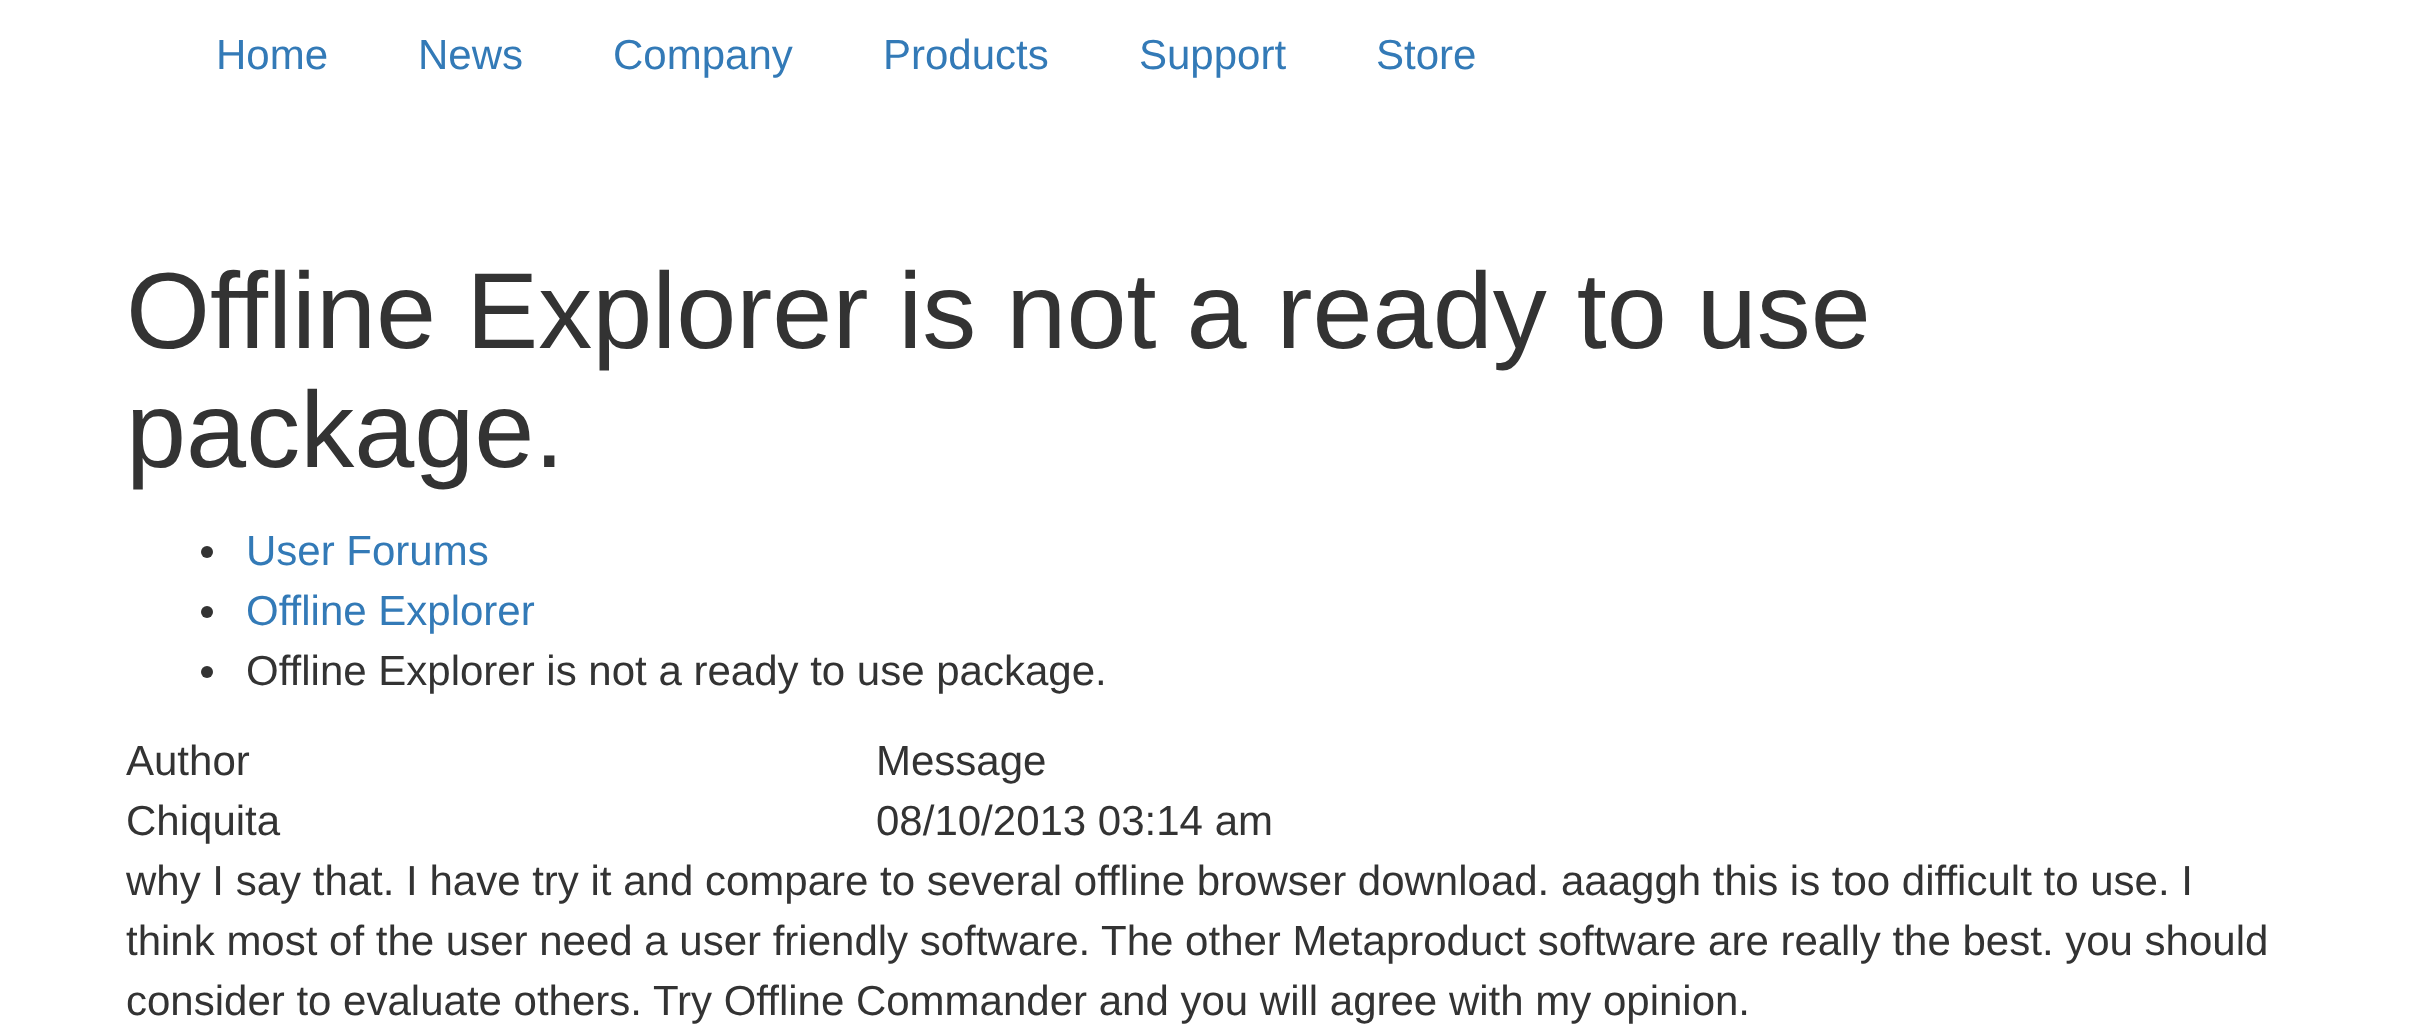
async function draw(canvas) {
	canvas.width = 2411;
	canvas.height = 1029;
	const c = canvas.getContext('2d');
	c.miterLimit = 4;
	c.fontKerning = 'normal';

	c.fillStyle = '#fff';
	c.fillRect(0, 0, 2411, 1029);
	c.font = '42px Liberation Sans';
	c.fillStyle = '#337ab7';
	for (const [text, x, y] of [
		['Home', 216, 69],
		['News', 418, 69],
		['Company', 613, 69],
		['Products', 883, 69],
		['Support', 1139, 69],
		['Store', 1376, 69],
	]) {
		c.fillText(text, x, y);
	}
	c.font = '108px Liberation Sans';
	c.fillStyle = '#333';
	c.fillText('Offline Explorer is not a ready to use', 126, 348);
	c.fillText('package.', 126, 467);
	c.beginPath();
	c.arc(207, 552, 6, 0, 2 * Math.PI);
	c.fill();
	c.font = '42px Liberation Sans';
	c.fillStyle = '#337ab7';
	c.fillText('User Forums', 246, 565);
	c.fillStyle = '#333';
	c.beginPath();
	c.arc(207, 612, 6, 0, 2 * Math.PI);
	c.fill();
	c.fillStyle = '#337ab7';
	c.fillText('Offline Explorer', 246, 625);
	c.fillStyle = '#333';
	c.beginPath();
	c.arc(207, 672, 6, 0, 2 * Math.PI);
	c.fill();
	for (const [text, x, y] of [
		['Offline Explorer is not a ready to use package.', 246, 685],
		['Author', 126, 775],
		['Message', 876, 775],
		['Chiquita', 126, 835],
		['08/10/2013 03:14 am', 876, 835],
		['why I say that. I have try it and compare to several offline browser download. aaaggh this is too difficult to use. I', 126, 895],
		['think most of the user need a user friendly software. The other Metaproduct software are really the best. you should', 126, 955],
		['consider to evaluate others. Try Offline Commander and you will agree with my opinion.', 126, 1015],
	]) {
		c.fillText(text, x, y);
	}
}

draw(document.querySelector('canvas'));
